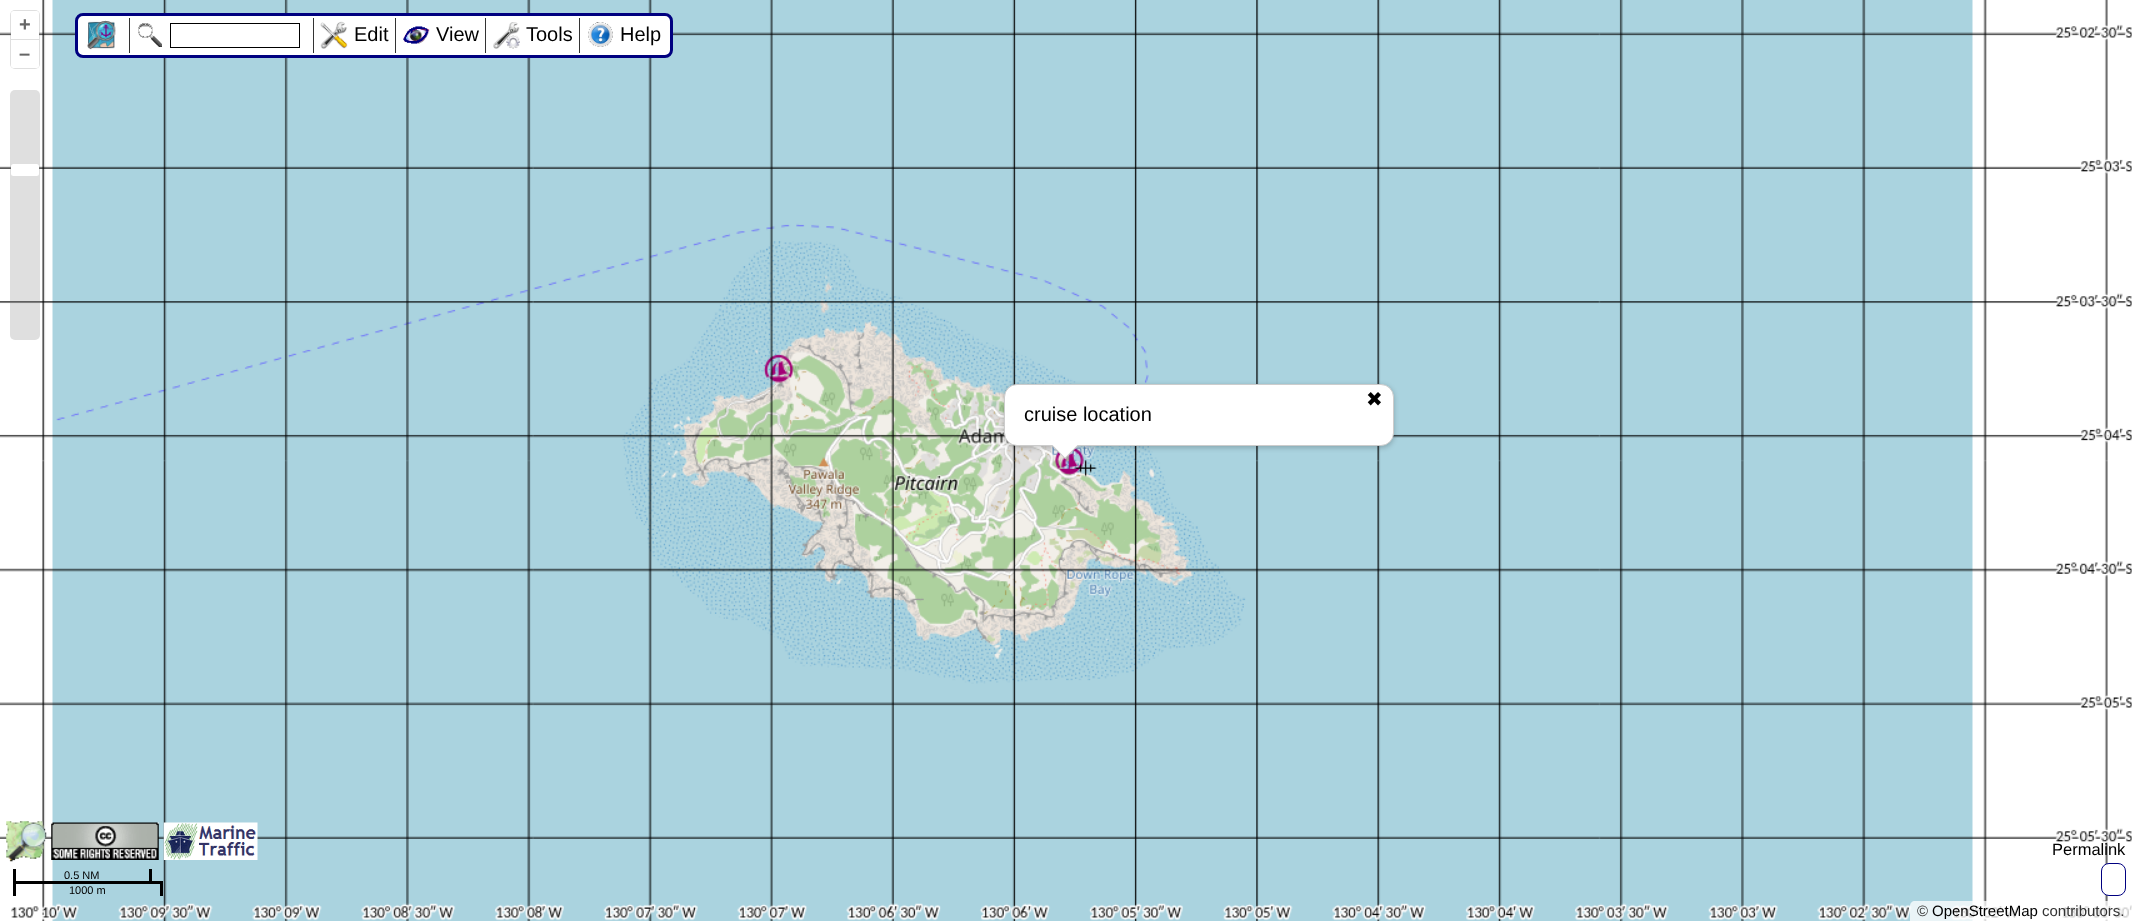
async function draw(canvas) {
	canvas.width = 2132;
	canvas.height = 921;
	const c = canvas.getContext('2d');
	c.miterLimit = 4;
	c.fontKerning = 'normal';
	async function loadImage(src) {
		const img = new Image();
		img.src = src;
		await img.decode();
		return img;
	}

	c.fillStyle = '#fff';
	c.fillRect(0, 0, 2132, 921);
	c.drawImage(await loadImage('img1.png'), 0, 0, 2132, 921);
	c.fillStyle = '#80808040';
	c.beginPath();
	c.roundRect(10, 10, 30, 59, 5);
	c.fill();
	c.fillStyle = '#fff';
	c.beginPath();
	c.roundRect(11, 11, 28, 28, [2.5, 2.5, 0, 0]);
	c.fill();
	c.font = 'bold 20px Liberation Sans';
	c.fillStyle = '#666';
	c.fillText('+', 19, 31);
	c.fillStyle = '#fff';
	c.beginPath();
	c.roundRect(11, 40, 28, 28, [0, 0, 2.5, 2.5]);
	c.fill();
	c.fillStyle = '#666';
	c.fillText('–', 19, 60);
	c.fillStyle = '#80808040';
	c.beginPath();
	c.roundRect(10, 90, 30, 250, 5);
	c.fill();
	c.fillStyle = '#fff';
	c.beginPath();
	c.roundRect(11, 164, 28, 12, 2.5);
	c.fill();
	c.fillStyle = '#00000033';
	c.filter = 'blur(2.5px)';
	c.beginPath();
	c.roundRect(1004, 385, 390, 63, 13);
	c.fill();
	c.filter = 'none';
	c.fillStyle = '#fff';
	c.beginPath();
	c.roundRect(1004.5, 384.5, 389, 61, 12.5);
	c.fill();
	c.strokeStyle = '#ccc';
	c.stroke();
	c.font = '20px DejaVu Sans';
	c.fillStyle = '#000';
	c.fillText('✖', 1366, 406);
	c.font = '20px Liberation Sans';
	c.fillText('cruise location', 1024, 421);
	c.fillStyle = '#ccc';
	c.beginPath();
	c.moveTo(1051, 445);
	c.lineTo(1079, 445);
	c.lineTo(1065, 459);
	c.closePath();
	c.fill();
	c.fillStyle = '#fff';
	c.beginPath();
	c.moveTo(1052.5, 445);
	c.lineTo(1077.5, 445);
	c.lineTo(1065, 457.5);
	c.closePath();
	c.fill();
	c.font = '16.5px Liberation Sans';
	c.fillStyle = '#000';
	c.fillText('Permalink', 2052, 855);
	c.fillRect(13, 881, 150, 3);
	c.fillRect(149, 869, 3, 15);
	c.font = '11px Liberation Sans';
	c.fillText('0.5 NM', 64, 879);
	c.fillStyle = '#fff';
	c.beginPath();
	c.roundRect(2101.5, 863.5, 24, 32, 7.5);
	c.fill();
	c.strokeStyle = '#000080';
	c.stroke();
	c.fillStyle = '#000';
	c.fillRect(160, 881, 3, 15);
	c.fillRect(13, 869, 3, 27);
	c.fillText('1000 m', 69, 894);
	c.fillStyle = '#ffffffbf';
	c.beginPath();
	c.moveTo(1915, 901);
	c.lineTo(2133, 901);
	c.lineTo(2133, 921);
	c.lineTo(1910, 921);
	c.lineTo(1910, 906);
	c.bezierCurveTo(1910, 903, 1912, 901, 1915, 901);
	c.closePath();
	c.fill();
	c.font = '15px Liberation Sans';
	c.fillStyle = '#333';
	c.fillText('©', 1917, 916);
	c.fillStyle = '#000';
	c.fillText('OpenStreetMap', 1932, 916);
	c.fillStyle = '#333';
	c.fillText('contributors.', 2042, 916);
	c.fillStyle = '#fff';
	c.beginPath();
	c.roundRect(76.5, 14.5, 595, 42, 6.5);
	c.fill();
	c.lineWidth = 3;
	c.stroke();
	c.fillStyle = '#333';
	c.fillRect(129, 18, 1, 35);
	c.drawImage(await loadImage('img2.png'), 87, 20, 29, 30);
	c.fillRect(313, 18, 1, 35);
	c.drawImage(await loadImage('img3.png'), 138, 23, 24, 24);
	c.strokeStyle = '#000';
	c.lineWidth = 1;
	c.strokeRect(170.5, 23.5, 129, 24);
	c.fillRect(395, 18, 1, 35);
	c.drawImage(await loadImage('img4.png'), 320, 21, 28, 28);
	c.font = '20px Liberation Sans';
	c.fillStyle = '#000';
	c.fillText('Edit', 354, 41);
	c.fillStyle = '#333';
	c.fillRect(485, 18, 1, 35);
	c.drawImage(await loadImage('img5.png'), 403, 26, 27, 18);
	c.fillStyle = '#000';
	c.fillText('View', 436, 41);
	c.fillStyle = '#333';
	c.fillRect(579, 18, 1, 35);
	c.drawImage(await loadImage('img6.png'), 493, 22, 27, 27);
	c.fillStyle = '#000';
	c.fillText('Tools', 526, 41);
	c.drawImage(await loadImage('img7.png'), 588, 22, 25, 25);
	c.fillText('Help', 620, 41);
	c.drawImage(await loadImage('img8.png'), 6, 821, 41, 41);
	c.drawImage(await loadImage('img9.png'), 51, 822, 108, 38);
	c.drawImage(await loadImage('img10.png'), 163, 822, 95, 38);
}

draw(document.querySelector('canvas'));
